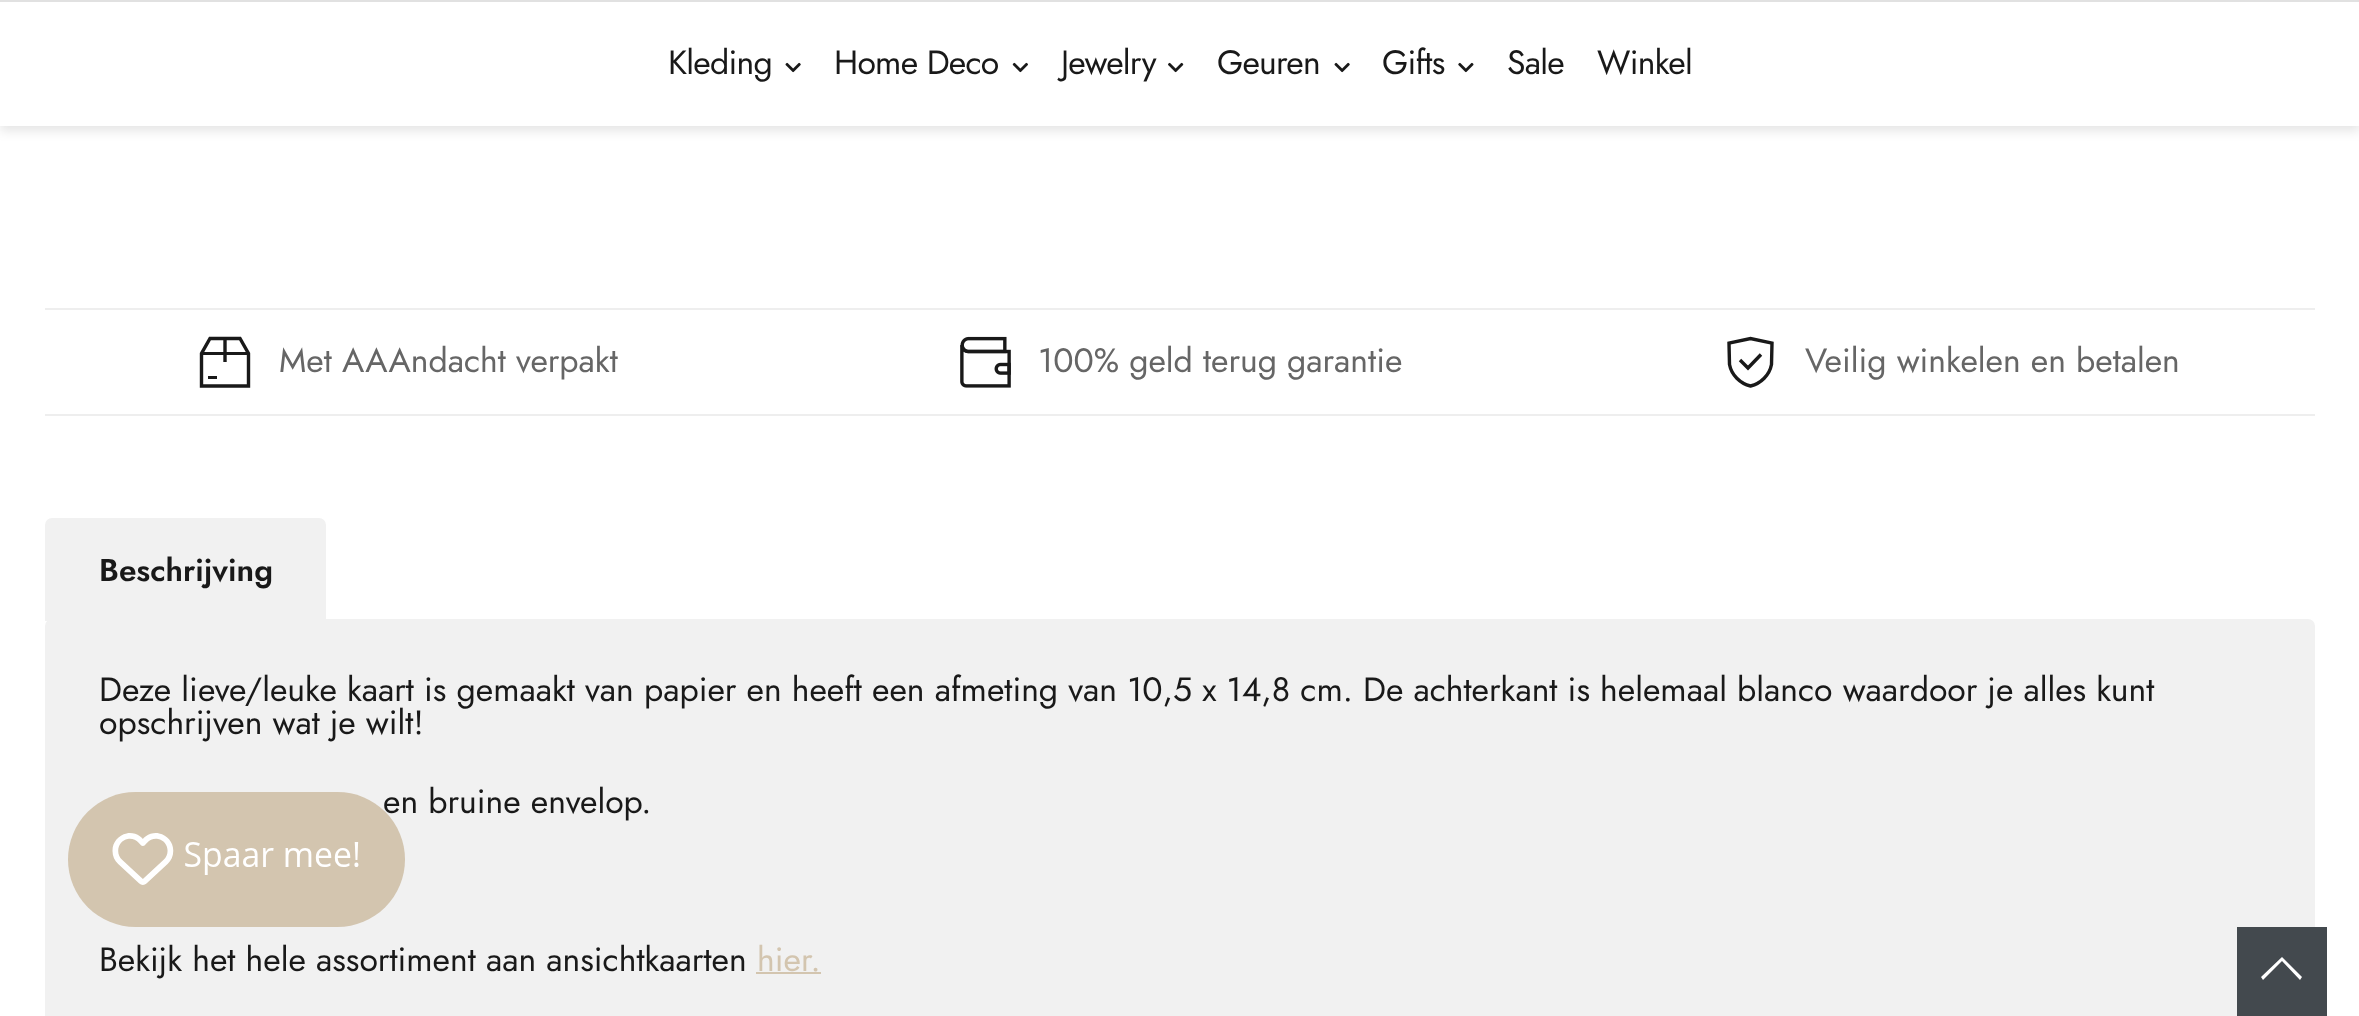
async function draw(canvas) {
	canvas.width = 2359;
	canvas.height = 1016;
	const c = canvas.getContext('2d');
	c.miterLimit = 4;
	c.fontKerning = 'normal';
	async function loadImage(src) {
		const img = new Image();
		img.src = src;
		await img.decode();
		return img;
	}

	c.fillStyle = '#fff';
	c.fillRect(0, 0, 2359, 1016);
	c.fillStyle = '#0000001a';
	c.filter = 'blur(5.5px)';
	c.beginPath();
	c.rect(0, 5, 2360, 126);
	c.fill();
	c.filter = 'none';
	c.fillStyle = '#fff';
	c.fillRect(0, 2, 2359, 124);
	c.fillStyle = '#e1e1e1';
	c.fillRect(0, 0, 2359, 2);
	c.letterSpacing = '-0.75px';
	c.font = '33.75px Jost';
	c.fillStyle = '#191919';
	c.fillText('Kleding', 668, 74);
	c.drawImage(await loadImage('img1.png'), 785, 62, 16, 11);
	c.fillText('Home Deco', 834, 74);
	c.drawImage(await loadImage('img2.png'), 1012, 62, 16, 11);
	c.fillText('Jewelry', 1061, 74);
	c.drawImage(await loadImage('img3.png'), 1168, 62, 16, 11);
	c.fillText('Geuren', 1217, 74);
	c.drawImage(await loadImage('img1.png'), 1334, 62, 16, 11);
	c.fillText('Gifts', 1382, 74);
	c.drawImage(await loadImage('img4.png'), 1458, 62, 16, 11);
	c.fillText('Sale', 1507, 74);
	c.fillText('Winkel', 1597, 74);
	c.fillStyle = '#eee';
	c.fillRect(45, 308, 2270, 2);
	c.beginPath();
	c.moveTo(240, 338.5);
	c.lineTo(210, 338.5);
	c.lineTo(201.5, 353.5);
	c.lineTo(201.5, 386);
	c.lineTo(248.5, 386);
	c.lineTo(248.5, 353.5);
	c.closePath();
	c.strokeStyle = '#191919';
	c.lineWidth = 3.4;
	c.stroke();
	c.beginPath();
	c.moveTo(225, 338.5);
	c.lineTo(225, 362);
	c.stroke();
	c.fillStyle = '#191919';
	c.fillRect(202, 352, 47, 3);
	c.fillRect(208, 376, 9, 3);
	c.letterSpacing = '0px';
	c.fillStyle = '#666';
	c.fillText('Met AAAndacht verpakt', 279, 372);
	c.drawImage(await loadImage('img5.png'), 960, 336, 51, 52);
	c.fillText('100% geld terug garantie', 1038, 372);
	c.beginPath();
	c.moveTo(1750.5, 386);
	c.bezierCurveTo(1740, 383.5, 1731.5, 375, 1729.5, 364.5);
	c.lineTo(1729, 343);
	c.lineTo(1750.5, 338.5);
	c.lineTo(1772, 343);
	c.lineTo(1771.5, 364.5);
	c.bezierCurveTo(1769.5, 375, 1761, 383.5, 1750.5, 386);
	c.closePath();
	c.moveTo(1740, 360);
	c.lineTo(1748, 368);
	c.lineTo(1761, 354.5);
	c.stroke();
	c.fillText('Veilig winkelen en betalen', 1805, 372);
	c.fillStyle = '#eee';
	c.fillRect(45, 414, 2270, 2);
	c.fillStyle = '#f1f1f1';
	c.beginPath();
	c.roundRect(45, 619, 2270, 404, 7);
	c.fill();
	c.beginPath();
	c.roundRect(45, 518, 281, 103, [7, 7, 0, 0]);
	c.fill();
	c.font = '600 31.5px Jost';
	c.fillStyle = '#191919';
	c.fillText('Beschrijving', 99, 581);
	c.font = '33.75px Jost';
	for (const [text, x, y] of [
		['Deze lieve/leuke kaart is gemaakt van papier en heeft een afmeting van 10,5 x 14,8 cm. De achterkant is helemaal blanco waardoor je alles kunt', 99, 701],
		['opschrijven wat je wilt!', 99, 734],
		['en bruine envelop.', 383, 813],
		['Bekijk het hele assortiment aan ansichtkaarten', 99, 971],
	]) {
		c.fillText(text, x, y);
	}
	c.fillStyle = '#d3c5af';
	c.fillText('hier.', 757, 971);
	c.fillRect(756, 972, 65, 2);
	c.beginPath();
	c.roundRect(68, 792, 337, 135, 67.5);
	c.fill();
	c.drawImage(await loadImage('img6.png'), 112, 833, 247, 52);
	c.fillStyle = '#43494e';
	c.fillRect(2237, 927, 90, 89);
	c.fillStyle = '#fff';
	c.beginPath();
	c.moveTo(2282, 957);
	c.lineTo(2302, 977);
	c.lineTo(2300, 980);
	c.lineTo(2282, 961);
	c.lineTo(2263, 980);
	c.lineTo(2261, 977);
	c.closePath();
	c.fill();
}

draw(document.querySelector('canvas'));
